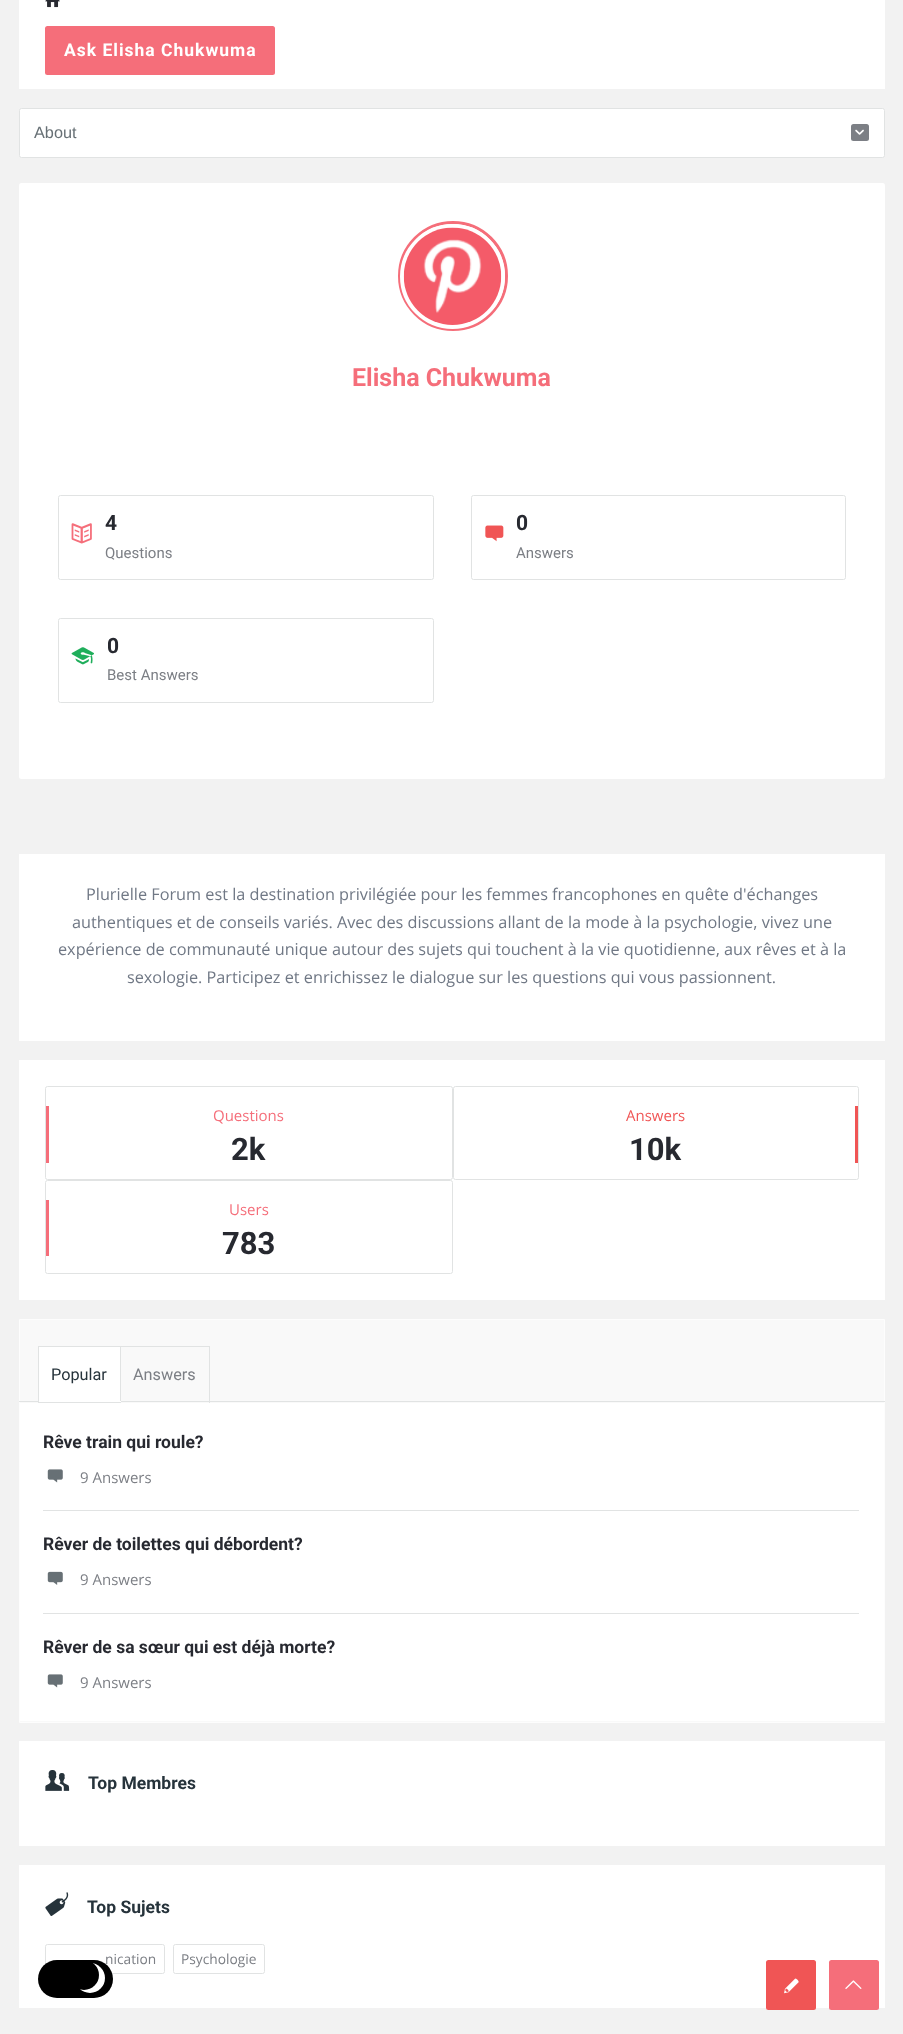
async function draw(canvas) {
	canvas.width = 903;
	canvas.height = 2034;
	const c = canvas.getContext('2d');
	c.miterLimit = 4;
	c.fontKerning = 'normal';
	async function loadImage(src) {
		const img = new Image();
		img.src = src;
		await img.decode();
		return img;
	}

	c.fillStyle = '#f2f2f2';
	c.fillRect(0, 0, 903, 2034);
	c.fillStyle = '#fff';
	c.fillRect(19, 0, 866, 89);
	c.drawImage(await loadImage('img1.png'), 45, 0, 15, 8);
	c.fillStyle = '#f56e7a';
	c.beginPath();
	c.roundRect(45, 26, 230, 49, 2.5);
	c.fill();
	c.letterSpacing = '1px';
	c.font = 'bold 17.5px Roboto';
	c.fillStyle = '#fff';
	c.fillText('Ask Elisha Chukwuma', 64, 56);
	c.beginPath();
	c.roundRect(19.5, 108.5, 865, 49, 2);
	c.fill();
	c.strokeStyle = '#e1e3e3';
	c.stroke();
	c.letterSpacing = '0px';
	c.font = '16.25px Liberation Sans';
	c.fillStyle = '#677075';
	c.fillText('About', 34, 138);
	c.fillStyle = '#7c7f85';
	c.beginPath();
	c.roundRect(851, 124, 18, 17, 2.5);
	c.fill();
	c.drawImage(await loadImage('img2.png'), 855, 129, 9, 6);
	c.fillStyle = '#fff';
	c.beginPath();
	c.roundRect(19, 183, 866, 596, 2.5);
	c.fill();
	c.beginPath();
	c.arc(453, 276, 53.5, 0, 2 * Math.PI);
	c.strokeStyle = '#f56e7a';
	c.lineWidth = 3;
	c.stroke();
	c.beginPath();
	c.arc(452.5, 276.5, 50.5, 0, 2 * Math.PI);
	c.strokeStyle = '#fff';
	c.lineWidth = 4;
	c.stroke();
	c.drawImage(await loadImage('img3.png'), 403, 227, 99, 98);
	c.font = 'bold 25px Roboto';
	c.fillStyle = '#f56e7a';
	c.fillText('Elisha Chukwuma', 352, 386);
	c.beginPath();
	c.roundRect(58.5, 495.5, 375, 84, 2);
	c.strokeStyle = '#e1e3e3';
	c.lineWidth = 1;
	c.stroke();
	c.drawImage(await loadImage('img4.png'), 71, 523, 21, 21);
	c.font = 'bold 21px Roboto';
	c.fillStyle = '#272930';
	c.fillText('4', 105, 530);
	c.font = '15px Roboto';
	c.fillStyle = '#7c7f85';
	c.fillText('Questions', 105, 558);
	c.beginPath();
	c.roundRect(471.5, 495.5, 374, 84, 2);
	c.stroke();
	c.drawImage(await loadImage('img5.png'), 485, 525, 19, 17);
	c.font = 'bold 21px Roboto';
	c.fillStyle = '#272930';
	c.fillText('0', 516, 530);
	c.font = '15px Roboto';
	c.fillStyle = '#7c7f85';
	c.fillText('Answers', 516, 558);
	c.beginPath();
	c.roundRect(58.5, 618.5, 375, 84, 2);
	c.stroke();
	c.drawImage(await loadImage('img6.png'), 71, 647, 23, 18);
	c.save();
	c.beginPath();
	c.rect(108, 631, 312, 58);
	c.clip();
	c.font = 'bold 21px Roboto';
	c.fillStyle = '#272930';
	c.fillText('0', 107, 653);
	c.restore();
	c.fillText('Best Answers', 107, 680);
	c.fillStyle = '#fff';
	c.fillRect(19, 854, 866, 187);
	c.font = '16.25px Open Sans';
	c.fillStyle = '#707885';
	for (const [text, x, y] of [
		['Plurielle Forum est la destination privilégiée pour les femmes francophones en quête d\'échanges', 86, 900],
		['authentiques et de conseils variés. Avec des discussions allant de la mode à la psychologie, vivez une', 72, 928],
		['expérience de communauté unique autour des sujets qui touchent à la vie quotidienne, aux rêves et à la', 58, 955],
		['sexologie. Participez et enrichissez le dialogue sur les questions qui vous passionnent.', 127, 983],
	]) {
		c.fillText(text, x, y);
	}
	c.fillStyle = '#fff';
	c.fillRect(19, 1060, 866, 240);
	c.beginPath();
	c.roundRect(45.5, 1086.5, 407, 93, 2);
	c.stroke();
	c.fillStyle = '#f56e7a';
	c.fillRect(46, 1106, 3, 57);
	c.font = '15px Open Sans';
	c.fillText('Questions', 213, 1121);
	c.font = 'bold 31px Roboto';
	c.fillStyle = '#272930';
	c.fillText('2k', 231, 1160);
	c.beginPath();
	c.roundRect(453.5, 1086.5, 405, 93, 2);
	c.stroke();
	c.font = '15px Open Sans';
	c.fillStyle = '#f05555';
	c.fillText('Answers', 626, 1121);
	c.font = 'bold 31px Roboto';
	c.fillStyle = '#272930';
	c.fillText('10k', 629, 1160);
	c.fillStyle = '#f05555';
	c.fillRect(855, 1106, 3, 57);
	c.beginPath();
	c.roundRect(45.5, 1180.5, 407, 93, 2);
	c.stroke();
	c.fillStyle = '#f56e7a';
	c.fillRect(46, 1200, 3, 56);
	c.font = '15px Open Sans';
	c.fillText('Users', 229, 1215);
	c.font = 'bold 31px Roboto';
	c.fillStyle = '#272930';
	c.fillText('783', 222, 1254);
	c.fillStyle = '#f9f9f9';
	c.beginPath();
	c.rect(19.5, 1319.5, 865, 403);
	c.fill();
	c.strokeStyle = '#fdfdfd';
	c.stroke();
	c.fillStyle = '#e1e3e3';
	c.fillRect(19, 1401, 866, 1);
	c.fillStyle = '#fff';
	c.fillRect(39, 1347, 81, 54);
	c.strokeStyle = '#e1e3e3';
	c.strokeRect(38.5, 1346.5, 82, 56);
	c.font = '16.25px Roboto';
	c.fillStyle = '#26333b';
	c.fillText('Popular', 51, 1380);
	for (const [x, y, w, h, color] of [
		[39, 1401, 82, 1, '#fff'],
		[121, 1401, 88, 1, '#f9f9f9'],
		[121, 1346, 89, 1, '#e1e3e3'],
		[209, 1346, 1, 57, '#e1e3e3'],
		[121, 1401, 89, 1, '#e1e3e3'],
	]) {
		c.fillStyle = color;
		c.fillRect(x, y, w, h);
	}
	c.fillStyle = '#7c7f85';
	c.fillText('Answers', 133, 1380);
	c.fillStyle = '#fff';
	c.fillRect(20, 1403, 864, 318);
	c.fillStyle = '#e1e3e3';
	c.fillRect(43, 1510, 816, 1);
	c.font = 'bold 17.5px Roboto';
	c.fillStyle = '#272930';
	c.fillText('Rêve train qui roule?', 43, 1448);
	c.drawImage(await loadImage('img7.png'), 47, 1469, 16, 14);
	c.font = '15px Open Sans';
	c.fillStyle = '#7c7f85';
	c.fillText('9 Answers', 80, 1483);
	c.fillStyle = '#e1e3e3';
	c.fillRect(43, 1613, 816, 1);
	c.font = 'bold 17.5px Roboto';
	c.fillStyle = '#272930';
	c.fillText('Rêver de toilettes qui débordent?', 43, 1550);
	c.drawImage(await loadImage('img8.png'), 47, 1571, 16, 14);
	c.font = '15px Open Sans';
	c.fillStyle = '#7c7f85';
	c.fillText('9 Answers', 80, 1585);
	c.font = 'bold 17.5px Roboto';
	c.fillStyle = '#272930';
	c.fillText('Rêver de sa sœur qui est déjà morte?', 43, 1653);
	c.drawImage(await loadImage('img7.png'), 47, 1674, 16, 14);
	c.font = '15px Open Sans';
	c.fillStyle = '#7c7f85';
	c.fillText('9 Answers', 80, 1688);
	c.fillStyle = '#fff';
	c.fillRect(19, 1741, 866, 105);
	c.drawImage(await loadImage('img9.png'), 45, 1770, 25, 21);
	c.font = 'bold 17.5px Roboto';
	c.fillStyle = '#26333b';
	c.fillText('Top Membres', 88, 1789);
	c.fillStyle = '#fff';
	c.fillRect(19, 1865, 866, 143);
	c.drawImage(await loadImage('img10.png'), 45, 1892, 24, 24);
	c.fillStyle = '#26333b';
	c.fillText('Top Sujets', 87, 1913);
	c.beginPath();
	c.roundRect(45.5, 1944.5, 119, 29, 2);
	c.stroke();
	c.font = '13.75px Open Sans';
	c.fillStyle = '#7c7f85';
	c.fillText('nication', 105, 1964);
	c.beginPath();
	c.roundRect(173.5, 1944.5, 91, 29, 2);
	c.stroke();
	c.fillText('Psychologie', 181, 1964);
	c.fillStyle = '#000';
	c.beginPath();
	c.roundRect(38, 1960, 75, 38, 19);
	c.fill();
	c.fillStyle = '#fff';
	c.beginPath();
	c.arc(90, 1978, 15, 0, 2 * Math.PI);
	c.fill();
	c.fillStyle = '#000';
	c.beginPath();
	c.arc(84, 1975, 15, 0, 2 * Math.PI);
	c.fill();
	c.fillStyle = '#f05555';
	c.beginPath();
	c.roundRect(766, 1960, 50, 50, 2.5);
	c.fill();
	c.drawImage(await loadImage('img11.png'), 784, 1978, 15, 16);
	c.fillStyle = '#f56e7a';
	c.beginPath();
	c.roundRect(829, 1960, 50, 50, 2.5);
	c.fill();
	c.drawImage(await loadImage('img12.png'), 845, 1980, 17, 9);
}

draw(document.querySelector('canvas'));
